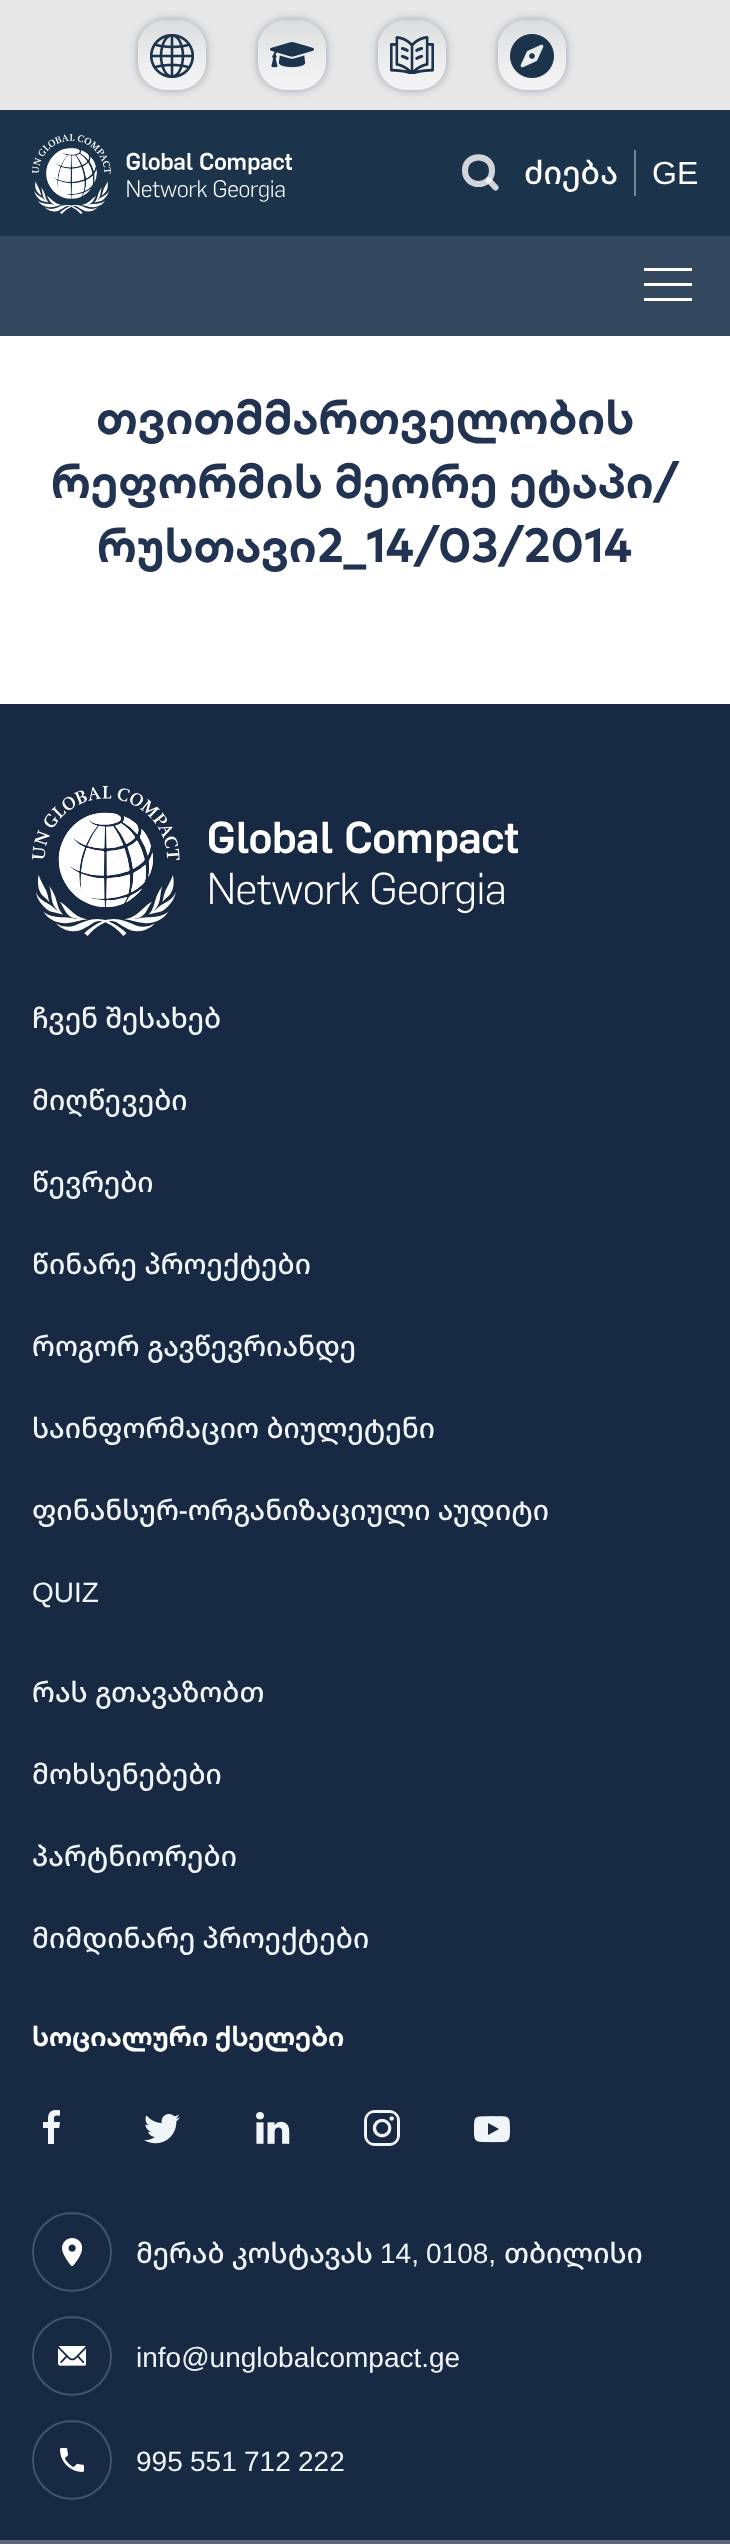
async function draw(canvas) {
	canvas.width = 730;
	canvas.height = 2544;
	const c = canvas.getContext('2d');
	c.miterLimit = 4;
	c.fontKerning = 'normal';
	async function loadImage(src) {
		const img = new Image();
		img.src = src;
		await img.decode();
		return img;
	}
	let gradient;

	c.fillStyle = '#fff';
	c.fillRect(0, 0, 730, 2544);
	c.fillStyle = '#e7e7e7';
	c.fillRect(0, 0, 730, 110);
	c.save();
	c.beginPath();
	c.moveTo(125, 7);
	c.lineTo(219, 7);
	c.lineTo(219, 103);
	c.lineTo(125, 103);
	c.closePath();
	c.moveTo(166, 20);
	c.lineTo(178, 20);
	c.bezierCurveTo(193.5, 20, 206, 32.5, 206, 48);
	c.lineTo(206, 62);
	c.bezierCurveTo(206, 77.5, 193.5, 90, 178, 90);
	c.lineTo(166, 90);
	c.bezierCurveTo(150.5, 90, 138, 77.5, 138, 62);
	c.lineTo(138, 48);
	c.bezierCurveTo(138, 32.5, 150.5, 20, 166, 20);
	c.closePath();
	c.clip('evenodd');
	c.fillStyle = '#21335066';
	c.filter = 'blur(4px)';
	c.beginPath();
	c.roundRect(138, 20, 68, 70, 28);
	c.fill();
	c.filter = 'none';
	c.restore();
	gradient = c.createLinearGradient(172, 20, 172, 90);
	gradient.addColorStop(0, '#d8dadb');
	gradient.addColorStop(1, '#ffffff80');
	gradient.addColorStop(1, '#ffffff00');
	c.fillStyle = gradient;
	c.beginPath();
	c.roundRect(138, 20, 68, 70, 28);
	c.fill();
	c.drawImage(await loadImage('img1.png'), 150, 34, 44, 44);
	c.save();
	c.beginPath();
	c.moveTo(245, 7);
	c.lineTo(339, 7);
	c.lineTo(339, 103);
	c.lineTo(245, 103);
	c.closePath();
	c.moveTo(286, 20);
	c.lineTo(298, 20);
	c.bezierCurveTo(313.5, 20, 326, 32.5, 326, 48);
	c.lineTo(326, 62);
	c.bezierCurveTo(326, 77.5, 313.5, 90, 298, 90);
	c.lineTo(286, 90);
	c.bezierCurveTo(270.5, 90, 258, 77.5, 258, 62);
	c.lineTo(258, 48);
	c.bezierCurveTo(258, 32.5, 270.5, 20, 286, 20);
	c.closePath();
	c.clip('evenodd');
	c.fillStyle = '#21335066';
	c.filter = 'blur(4px)';
	c.beginPath();
	c.roundRect(258, 20, 68, 70, 28);
	c.fill();
	c.filter = 'none';
	c.restore();
	gradient = c.createLinearGradient(292, 20, 292, 90);
	gradient.addColorStop(0, '#d8dadb');
	gradient.addColorStop(1, '#ffffff80');
	gradient.addColorStop(1, '#ffffff00');
	c.fillStyle = gradient;
	c.beginPath();
	c.roundRect(258, 20, 68, 70, 28);
	c.fill();
	c.drawImage(await loadImage('img2.png'), 270, 42, 44, 26);
	c.save();
	c.beginPath();
	c.moveTo(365, 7);
	c.lineTo(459, 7);
	c.lineTo(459, 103);
	c.lineTo(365, 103);
	c.closePath();
	c.moveTo(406, 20);
	c.lineTo(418, 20);
	c.bezierCurveTo(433.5, 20, 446, 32.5, 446, 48);
	c.lineTo(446, 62);
	c.bezierCurveTo(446, 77.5, 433.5, 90, 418, 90);
	c.lineTo(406, 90);
	c.bezierCurveTo(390.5, 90, 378, 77.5, 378, 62);
	c.lineTo(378, 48);
	c.bezierCurveTo(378, 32.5, 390.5, 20, 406, 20);
	c.closePath();
	c.clip('evenodd');
	c.fillStyle = '#21335066';
	c.filter = 'blur(4px)';
	c.beginPath();
	c.roundRect(378, 20, 68, 70, 28);
	c.fill();
	c.filter = 'none';
	c.restore();
	gradient = c.createLinearGradient(412, 20, 412, 90);
	gradient.addColorStop(0, '#d8dadb');
	gradient.addColorStop(1, '#ffffff80');
	gradient.addColorStop(1, '#ffffff00');
	c.fillStyle = gradient;
	c.beginPath();
	c.roundRect(378, 20, 68, 70, 28);
	c.fill();
	c.drawImage(await loadImage('img3.png'), 390, 36, 44, 38);
	c.save();
	c.beginPath();
	c.moveTo(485, 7);
	c.lineTo(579, 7);
	c.lineTo(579, 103);
	c.lineTo(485, 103);
	c.closePath();
	c.moveTo(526, 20);
	c.lineTo(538, 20);
	c.bezierCurveTo(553.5, 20, 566, 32.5, 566, 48);
	c.lineTo(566, 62);
	c.bezierCurveTo(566, 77.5, 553.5, 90, 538, 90);
	c.lineTo(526, 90);
	c.bezierCurveTo(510.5, 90, 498, 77.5, 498, 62);
	c.lineTo(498, 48);
	c.bezierCurveTo(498, 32.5, 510.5, 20, 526, 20);
	c.closePath();
	c.clip('evenodd');
	c.fillStyle = '#21335066';
	c.filter = 'blur(4px)';
	c.beginPath();
	c.roundRect(498, 20, 68, 70, 28);
	c.fill();
	c.filter = 'none';
	c.restore();
	gradient = c.createLinearGradient(532, 20, 532, 90);
	gradient.addColorStop(0, '#d8dadb');
	gradient.addColorStop(1, '#ffffff80');
	gradient.addColorStop(1, '#ffffff00');
	c.fillStyle = gradient;
	c.beginPath();
	c.roundRect(498, 20, 68, 70, 28);
	c.fill();
	c.drawImage(await loadImage('img4.png'), 510, 34, 44, 44);
	c.fillStyle = '#1c334c';
	c.fillRect(0, 110, 730, 126);
	c.drawImage(await loadImage('img5.png'), 32, 134, 260, 80);
	c.font = '500 32px Noto Sans Georgian';
	c.fillStyle = '#fff';
	c.fillText('ძიება', 524, 184);
	c.beginPath();
	c.moveTo(492, 170.5);
	c.bezierCurveTo(492, 188.5, 465, 188.5, 465, 170.5);
	c.bezierCurveTo(465, 153, 492, 153, 492, 170.5);
	c.closePath();
	c.strokeStyle = '#d2d6db';
	c.lineWidth = 6.1;
	c.lineCap = 'round';
	c.lineJoin = 'round';
	c.stroke();
	c.beginPath();
	c.moveTo(495.5, 187.5);
	c.lineTo(489, 180.5);
	c.strokeStyle = '#ffffffcc';
	c.stroke();
	c.fillStyle = '#778594';
	c.fillRect(634, 150, 2, 46);
	c.font = '32px Liberation Sans';
	c.fillStyle = '#fff';
	c.fillText('GE', 652, 184);
	for (const [x, y, w, h, color] of [
		[0, 236, 730, 100, '#33475e'],
		[644, 268, 48, 3, '#fff'],
		[644, 283, 48, 3, '#fff'],
		[644, 298, 48, 3, '#fff'],
	]) {
		c.fillStyle = color;
		c.fillRect(x, y, w, h);
	}
	c.font = 'bold 48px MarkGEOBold';
	c.fillStyle = '#213350';
	for (const [text, x, y] of [
		['თვითმმართველობის', 96, 434],
		['რეფორმის მეორე ეტაპი/', 51, 498],
		['რუსთავი2_14/03/2014', 97, 562],
	]) {
		c.fillText(text, x, y);
	}
	c.fillStyle = '#182943';
	c.fillRect(0, 704, 730, 1836);
	c.drawImage(await loadImage('img6.png'), 32, 786, 486, 150);
	c.font = '500 28px Noto Sans Georgian';
	c.fillStyle = '#eff5f8';
	for (const [text, x, y] of [
		['ჩვენ შესახებ', 32, 1028],
		['მიღწევები', 32, 1110],
		['წევრები', 32, 1192],
		['წინარე პროექტები', 32, 1274],
		['როგორ გავწევრიანდე', 32, 1356],
		['საინფორმაციო ბიულეტენი', 32, 1438],
		['ფინანსურ-ორგანიზაციული აუდიტი', 32, 1520],
	]) {
		c.fillText(text, x, y);
	}
	c.font = '28px Liberation Sans';
	c.fillText('QUIZ', 32, 1602);
	c.font = '500 28px Noto Sans Georgian';
	for (const [text, x, y] of [
		['რას გთავაზობთ', 32, 1702],
		['მოხსენებები', 32, 1784],
		['პარტნიორები', 32, 1866],
		['მიმდინარე პროექტები', 32, 1948],
	]) {
		c.fillText(text, x, y);
	}
	c.font = 'bold 28px MarkGEOBold';
	c.fillStyle = '#fff';
	c.fillText('სოციალური ქსელები', 32, 2046);
	c.drawImage(await loadImage('img7.png'), 43, 2110, 17, 34);
	c.drawImage(await loadImage('img8.png'), 144, 2114, 36, 30);
	c.drawImage(await loadImage('img9.png'), 256, 2112, 34, 32);
	c.drawImage(await loadImage('img10.png'), 364, 2110, 36, 36);
	c.drawImage(await loadImage('img11.png'), 474, 2116, 36, 27);
	c.beginPath();
	c.arc(72, 2252, 39, 0, 2 * Math.PI);
	c.strokeStyle = '#465469';
	c.lineWidth = 2;
	c.stroke();
	c.drawImage(await loadImage('img12.png'), 62, 2238, 20, 28);
	c.font = '500 28px Noto Sans Georgian';
	c.fillStyle = '#eff5f8';
	c.fillText('მერაბ კოსტავას', 136, 2263);
	c.font = '28px Liberation Sans';
	c.fillText('14,', 380, 2263);
	c.fillText('0108,', 426, 2263);
	c.font = '500 28px Noto Sans Georgian';
	c.fillText('თბილისი', 504, 2263);
	c.beginPath();
	c.arc(72, 2356, 39, 0, 2 * Math.PI);
	c.stroke();
	c.drawImage(await loadImage('img13.png'), 58, 2346, 28, 20);
	c.font = '28px Liberation Sans';
	c.fillText('info@unglobalcompact.ge', 136, 2367);
	c.beginPath();
	c.arc(72, 2460, 39, 0, 2 * Math.PI);
	c.stroke();
	c.drawImage(await loadImage('img14.png'), 60, 2448, 24, 24);
	c.wordSpacing = '-0.5px';
	c.fillText('995 551 712 222', 136, 2471);
	c.fillStyle = '#5d697b';
	c.fillRect(0, 2540, 730, 4);
}

draw(document.querySelector('canvas'));
